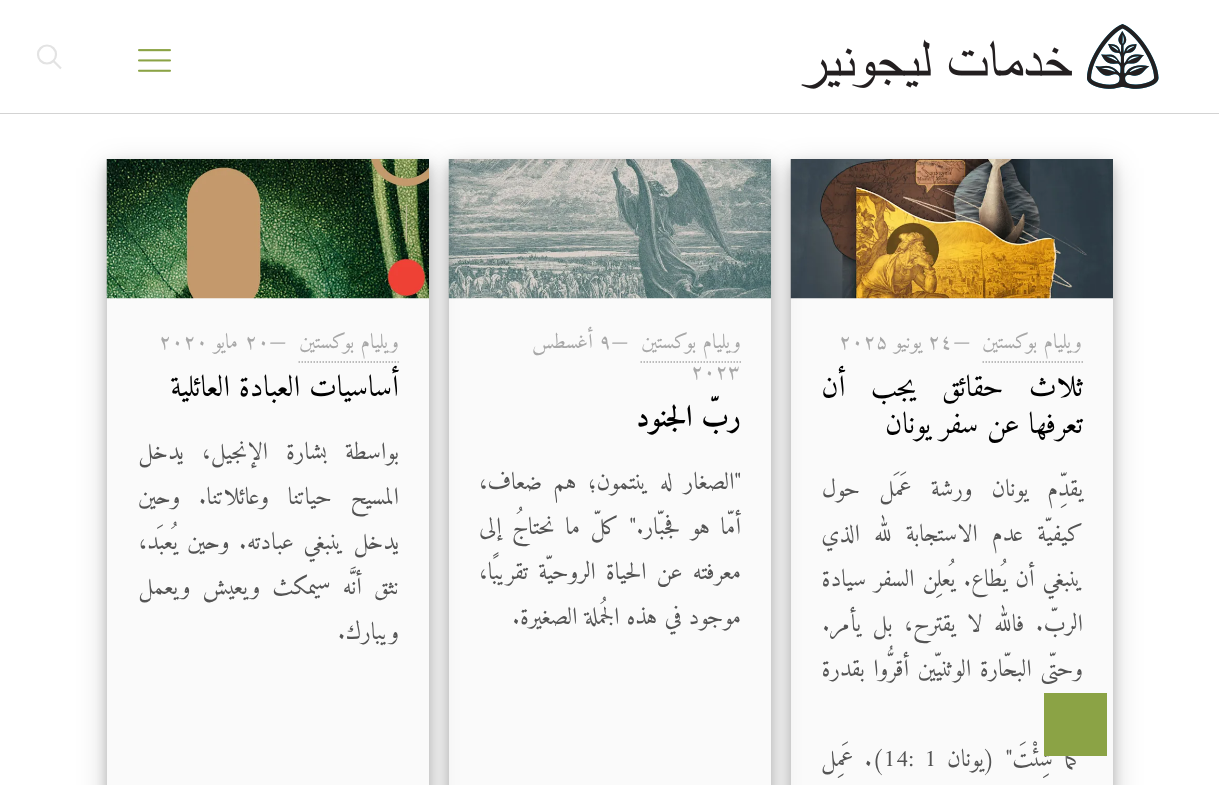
async function draw(canvas) {
	canvas.width = 1219;
	canvas.height = 785;
	const c = canvas.getContext('2d');
	c.miterLimit = 4;
	c.fontKerning = 'normal';
	async function loadImage(src) {
		const img = new Image();
		img.src = src;
		await img.decode();
		return img;
	}

	c.fillStyle = '#fff';
	c.fillRect(0, 0, 1219, 785);
	c.fillStyle = '#d3d3d3';
	c.fillRect(0, 113, 1219, 1);
	c.drawImage(await loadImage('img1.png'), 801, 24, 358, 65);
	c.drawImage(await loadImage('img2.png'), 138, 49, 33, 23);
	c.beginPath();
	c.arc(47, 54.5, 9, 0, 2 * Math.PI);
	c.strokeStyle = '#e3e3e3';
	c.lineWidth = 2.2;
	c.stroke();
	c.beginPath();
	c.moveTo(53.5, 61);
	c.lineTo(61, 68.5);
	c.stroke();
	c.fillStyle = '#00000030';
	c.filter = 'blur(15px)';
	c.beginPath();
	c.rect(791, 168, 322, 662);
	c.fill();
	c.filter = 'none';
	c.fillStyle = '#00000033';
	c.filter = 'blur(6px)';
	c.beginPath();
	c.rect(791, 165, 322, 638);
	c.fill();
	c.filter = 'none';
	c.fillStyle = '#fafafa';
	c.fillRect(791, 298, 322, 487);
	c.drawImage(await loadImage('img3.png'), 790, 159, 323, 140);
	c.direction = 'rtl';
	c.font = '21px Amiri';
	c.fillStyle = '#a8a8a8';
	c.fillText('ويليام بوكستين', 1082, 348);
	c.beginPath();
	c.moveTo(982.5, 362);
	c.lineTo(1083, 362);
	c.strokeStyle = '#a8a8a8';
	c.lineWidth = 1.5;
	c.setLineDash([1.5, 1.5]);
	c.stroke();
	c.direction = 'ltr';
	c.fillText('—', 953, 348);
	c.fillText('۲٤', 928, 348);
	c.direction = 'rtl';
	c.fillText('يونيو', 922, 348);
	c.direction = 'ltr';
	c.fillText('۲۰۲۵', 839, 348);
	c.wordSpacing = '16.5px';
	c.direction = 'rtl';
	c.font = '30px Amiri';
	c.fillStyle = '#000';
	c.fillText('ثلاث حقائق يجب أن', 1083, 396);
	c.wordSpacing = '0px';
	c.fillText('تعرفها عن سفر يونان', 1083, 433);
	c.wordSpacing = '12px';
	c.font = '24px Amiri';
	c.fillStyle = '#545454';
	c.fillText('يقدِّم يونان ورشة عَمَل حول', 1083, 496);
	c.wordSpacing = '7px';
	c.fillText('كيفيّة عدم الاستجابة لله الذي', 1083, 541);
	c.wordSpacing = '1px';
	c.fillText('ينبغي أن يُطاع. يُعلِن السفر سيادة', 1083, 586);
	c.wordSpacing = '4.5px';
	c.fillText('الربّ. فالله لا يقترح، بل يأمر.', 1083, 631);
	c.wordSpacing = '1.5px';
	c.fillText('وحتّى البحّارة الوثنيّين أقرُّوا بقدرة', 1083, 676);
	c.wordSpacing = '4px';
	c.fillText('كَمَا شِئْتَ" (يونان', 1083, 766);
	c.wordSpacing = '0px';
	c.direction = 'ltr';
	c.fillText('1', 924, 766);
	c.fillText('14:', 883, 766);
	c.wordSpacing = '4px';
	c.direction = 'rtl';
	c.fillText('). عَمِل', 883, 766);
	c.fillStyle = '#00000030';
	c.filter = 'blur(15px)';
	c.beginPath();
	c.rect(449, 168, 322, 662);
	c.fill();
	c.filter = 'none';
	c.fillStyle = '#00000033';
	c.filter = 'blur(6px)';
	c.beginPath();
	c.rect(449, 165, 322, 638);
	c.fill();
	c.filter = 'none';
	c.fillStyle = '#fafafa';
	c.fillRect(449, 298, 322, 487);
	c.drawImage(await loadImage('img4.png'), 448, 159, 323, 140);
	c.wordSpacing = '0px';
	c.font = '21px Amiri';
	c.fillStyle = '#a8a8a8';
	c.fillText('ويليام بوكستين', 741, 348);
	c.beginPath();
	c.moveTo(640.5, 362);
	c.lineTo(741, 362);
	c.stroke();
	c.direction = 'ltr';
	c.fillText('—', 611, 348);
	c.fillText('۹', 599, 348);
	c.direction = 'rtl';
	c.fillText('أغسطس', 593, 348);
	c.direction = 'ltr';
	c.fillText('۲۰۲۳', 691, 378);
	c.direction = 'rtl';
	c.font = 'bold 30px Amiri';
	c.fillStyle = '#000';
	c.fillText('ربّ الجنود', 741, 426);
	c.wordSpacing = '4px';
	c.font = '24px Amiri';
	c.fillStyle = '#545454';
	c.fillText('"الصغار له ينتمون؛ هم ضعاف،', 741, 489);
	c.wordSpacing = '3.5px';
	c.fillText('أمّا هو فجبّار." كلّ ما نحتاجُ إلى', 741, 534);
	c.wordSpacing = '3px';
	c.fillText('معرفته عن الحياة الروحيّة تقريبًا،', 741, 579);
	c.wordSpacing = '0px';
	c.fillText('موجود في هذه الجُملة الصغيرة.', 741, 624);
	c.fillStyle = '#00000030';
	c.filter = 'blur(15px)';
	c.beginPath();
	c.rect(107, 168, 322, 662);
	c.fill();
	c.filter = 'none';
	c.fillStyle = '#00000033';
	c.filter = 'blur(6px)';
	c.beginPath();
	c.rect(107, 165, 322, 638);
	c.fill();
	c.filter = 'none';
	c.fillStyle = '#fafafa';
	c.fillRect(107, 298, 322, 487);
	c.drawImage(await loadImage('img5.png'), 106, 159, 323, 140);
	c.font = '21px Amiri';
	c.fillStyle = '#a8a8a8';
	c.fillText('ويليام بوكستين', 399, 348);
	c.beginPath();
	c.moveTo(298.5, 362);
	c.lineTo(399, 362);
	c.stroke();
	c.direction = 'ltr';
	c.fillText('—', 269, 348);
	c.fillText('۲۰', 245, 348);
	c.direction = 'rtl';
	c.fillText('مايو', 238, 348);
	c.direction = 'ltr';
	c.fillText('۲۰۲۰', 159, 348);
	c.direction = 'rtl';
	c.font = '30px Amiri';
	c.fillStyle = '#000';
	c.fillText('أساسيات العبادة العائلية', 399, 396);
	c.wordSpacing = '11px';
	c.font = '24px Amiri';
	c.fillStyle = '#545454';
	c.fillText('بواسطة بشارة الإنجيل، يدخل', 399, 459);
	c.wordSpacing = '11.5px';
	c.fillText('المسيح حياتنا وعائلاتنا. وحين', 399, 504);
	c.wordSpacing = '2.5px';
	c.fillText('يدخل ينبغي عبادته. وحين يُعبَد،', 399, 549);
	c.wordSpacing = '5px';
	c.fillText('نثق أنَّه سيمكث ويعيش ويعمل', 399, 594);
	c.wordSpacing = '0px';
	c.fillText('ويبارك.', 399, 639);
	c.fillStyle = '#8ba345';
	c.fillRect(1044, 693, 63, 63);
}

draw(document.querySelector('canvas'));
